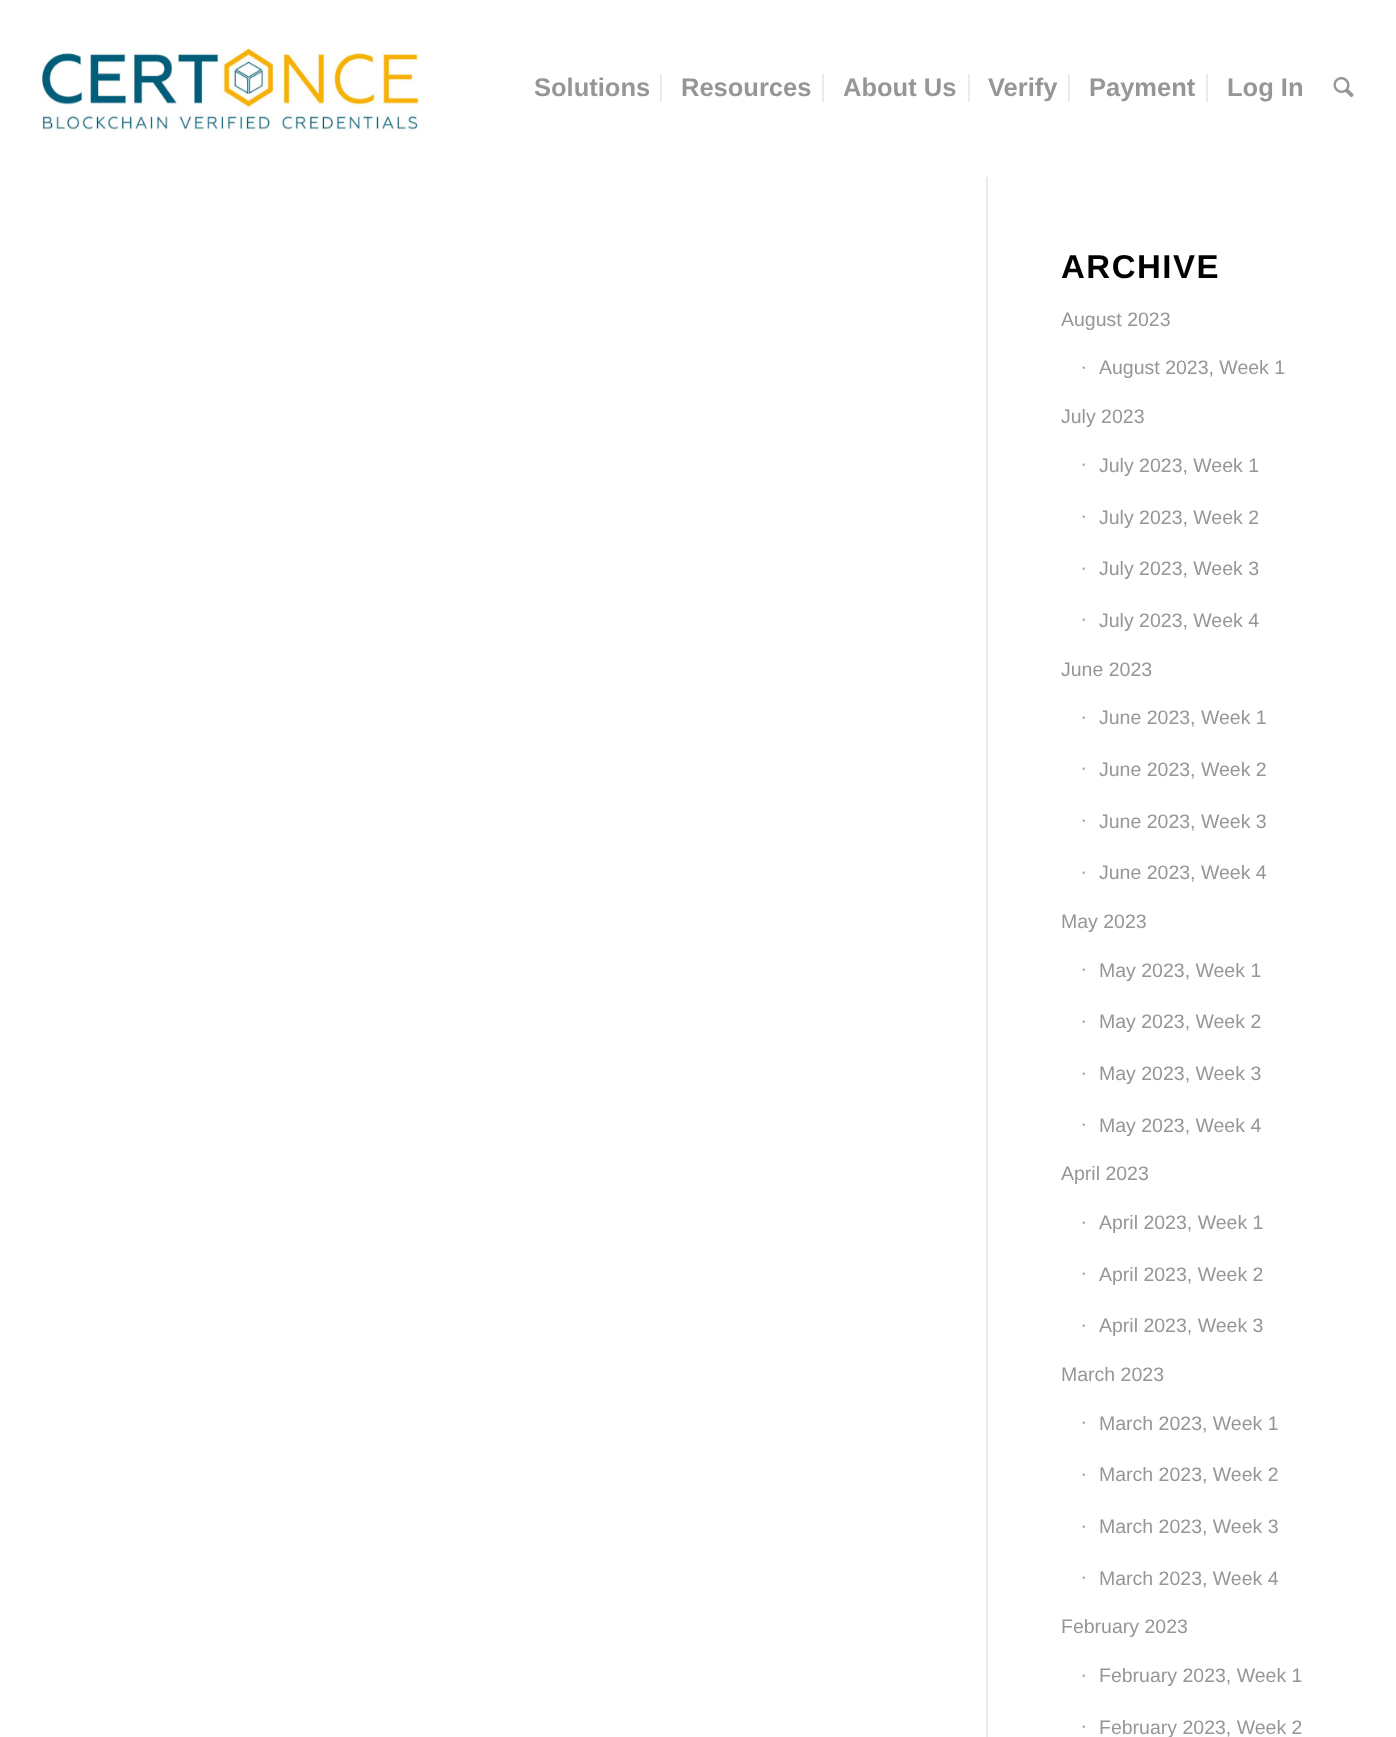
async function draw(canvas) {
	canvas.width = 1396;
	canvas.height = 1737;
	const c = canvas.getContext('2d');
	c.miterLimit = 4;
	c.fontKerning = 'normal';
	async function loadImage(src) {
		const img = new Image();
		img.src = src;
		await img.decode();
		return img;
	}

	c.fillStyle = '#fff';
	c.fillRect(0, 0, 1396, 1737);
	c.drawImage(await loadImage('img1.png'), 38, 47, 385, 85);
	c.font = 'bold 25.5px Liberation Sans';
	c.fillStyle = '#969696';
	c.fillText('Solutions', 534, 96);
	c.fillText('Resources', 681, 96);
	c.fillStyle = '#ebebeb';
	c.fillRect(660, 74, 2, 28);
	c.fillStyle = '#969696';
	c.fillText('About Us', 843, 96);
	c.fillStyle = '#ebebeb';
	c.fillRect(822, 74, 2, 28);
	c.fillStyle = '#969696';
	c.fillText('Verify', 988, 96);
	c.fillStyle = '#ebebeb';
	c.fillRect(968, 74, 2, 28);
	c.fillStyle = '#969696';
	c.fillText('Payment', 1089, 96);
	c.fillStyle = '#ebebeb';
	c.fillRect(1068, 74, 2, 28);
	c.fillStyle = '#969696';
	c.fillText('Log In', 1227, 96);
	c.fillStyle = '#ebebeb';
	c.fillRect(1206, 74, 2, 28);
	c.drawImage(await loadImage('img2.png'), 1333, 77, 21, 21);
	c.fillRect(986, 174, 2, 1563);
	c.fillStyle = '#fff';
	c.fillRect(986, 174, 2, 3);
	c.letterSpacing = '1.5px';
	c.font = 'bold 33px Liberation Sans';
	c.fillStyle = '#000';
	c.fillText('ARCHIVE', 1061, 278);
	c.letterSpacing = '0px';
	c.font = '19.5px Liberation Sans';
	c.fillStyle = '#969696';
	for (const [text, x, y] of [
		['August 2023', 1061, 326],
		['∙', 1081, 373],
		['August 2023, Week 1', 1099, 374],
		['July 2023', 1061, 423],
		['∙', 1081, 470],
		['July 2023, Week 1', 1099, 472],
		['∙', 1081, 522],
		['July 2023, Week 2', 1099, 524],
		['∙', 1081, 574],
		['July 2023, Week 3', 1099, 575],
		['∙', 1081, 625],
		['July 2023, Week 4', 1099, 627],
		['June 2023', 1061, 676],
		['∙', 1081, 723],
		['June 2023, Week 1', 1099, 724],
		['∙', 1081, 774],
		['June 2023, Week 2', 1099, 776],
		['∙', 1081, 826],
		['June 2023, Week 3', 1099, 828],
		['∙', 1081, 878],
		['June 2023, Week 4', 1099, 879],
		['May 2023', 1061, 928],
		['∙', 1081, 975],
		['May 2023, Week 1', 1099, 977],
		['∙', 1081, 1027],
		['May 2023, Week 2', 1099, 1028],
		['∙', 1081, 1079],
		['May 2023, Week 3', 1099, 1080],
		['∙', 1081, 1130],
		['May 2023, Week 4', 1099, 1132],
		['April 2023', 1061, 1180],
		['∙', 1081, 1228],
		['April 2023, Week 1', 1099, 1229],
		['∙', 1081, 1279],
		['April 2023, Week 2', 1099, 1281],
		['∙', 1081, 1331],
		['April 2023, Week 3', 1099, 1332],
		['March 2023', 1061, 1381],
		['∙', 1081, 1428],
		['March 2023, Week 1', 1099, 1430],
		['∙', 1081, 1480],
		['March 2023, Week 2', 1099, 1481],
		['∙', 1081, 1532],
		['March 2023, Week 3', 1099, 1533],
		['∙', 1081, 1583],
		['March 2023, Week 4', 1099, 1585],
		['February 2023', 1061, 1633],
		['∙', 1081, 1681],
		['February 2023, Week 1', 1099, 1682],
		['∙', 1081, 1732],
		['February 2023, Week 2', 1099, 1734],
	]) {
		c.fillText(text, x, y);
	}
}

draw(document.querySelector('canvas'));
